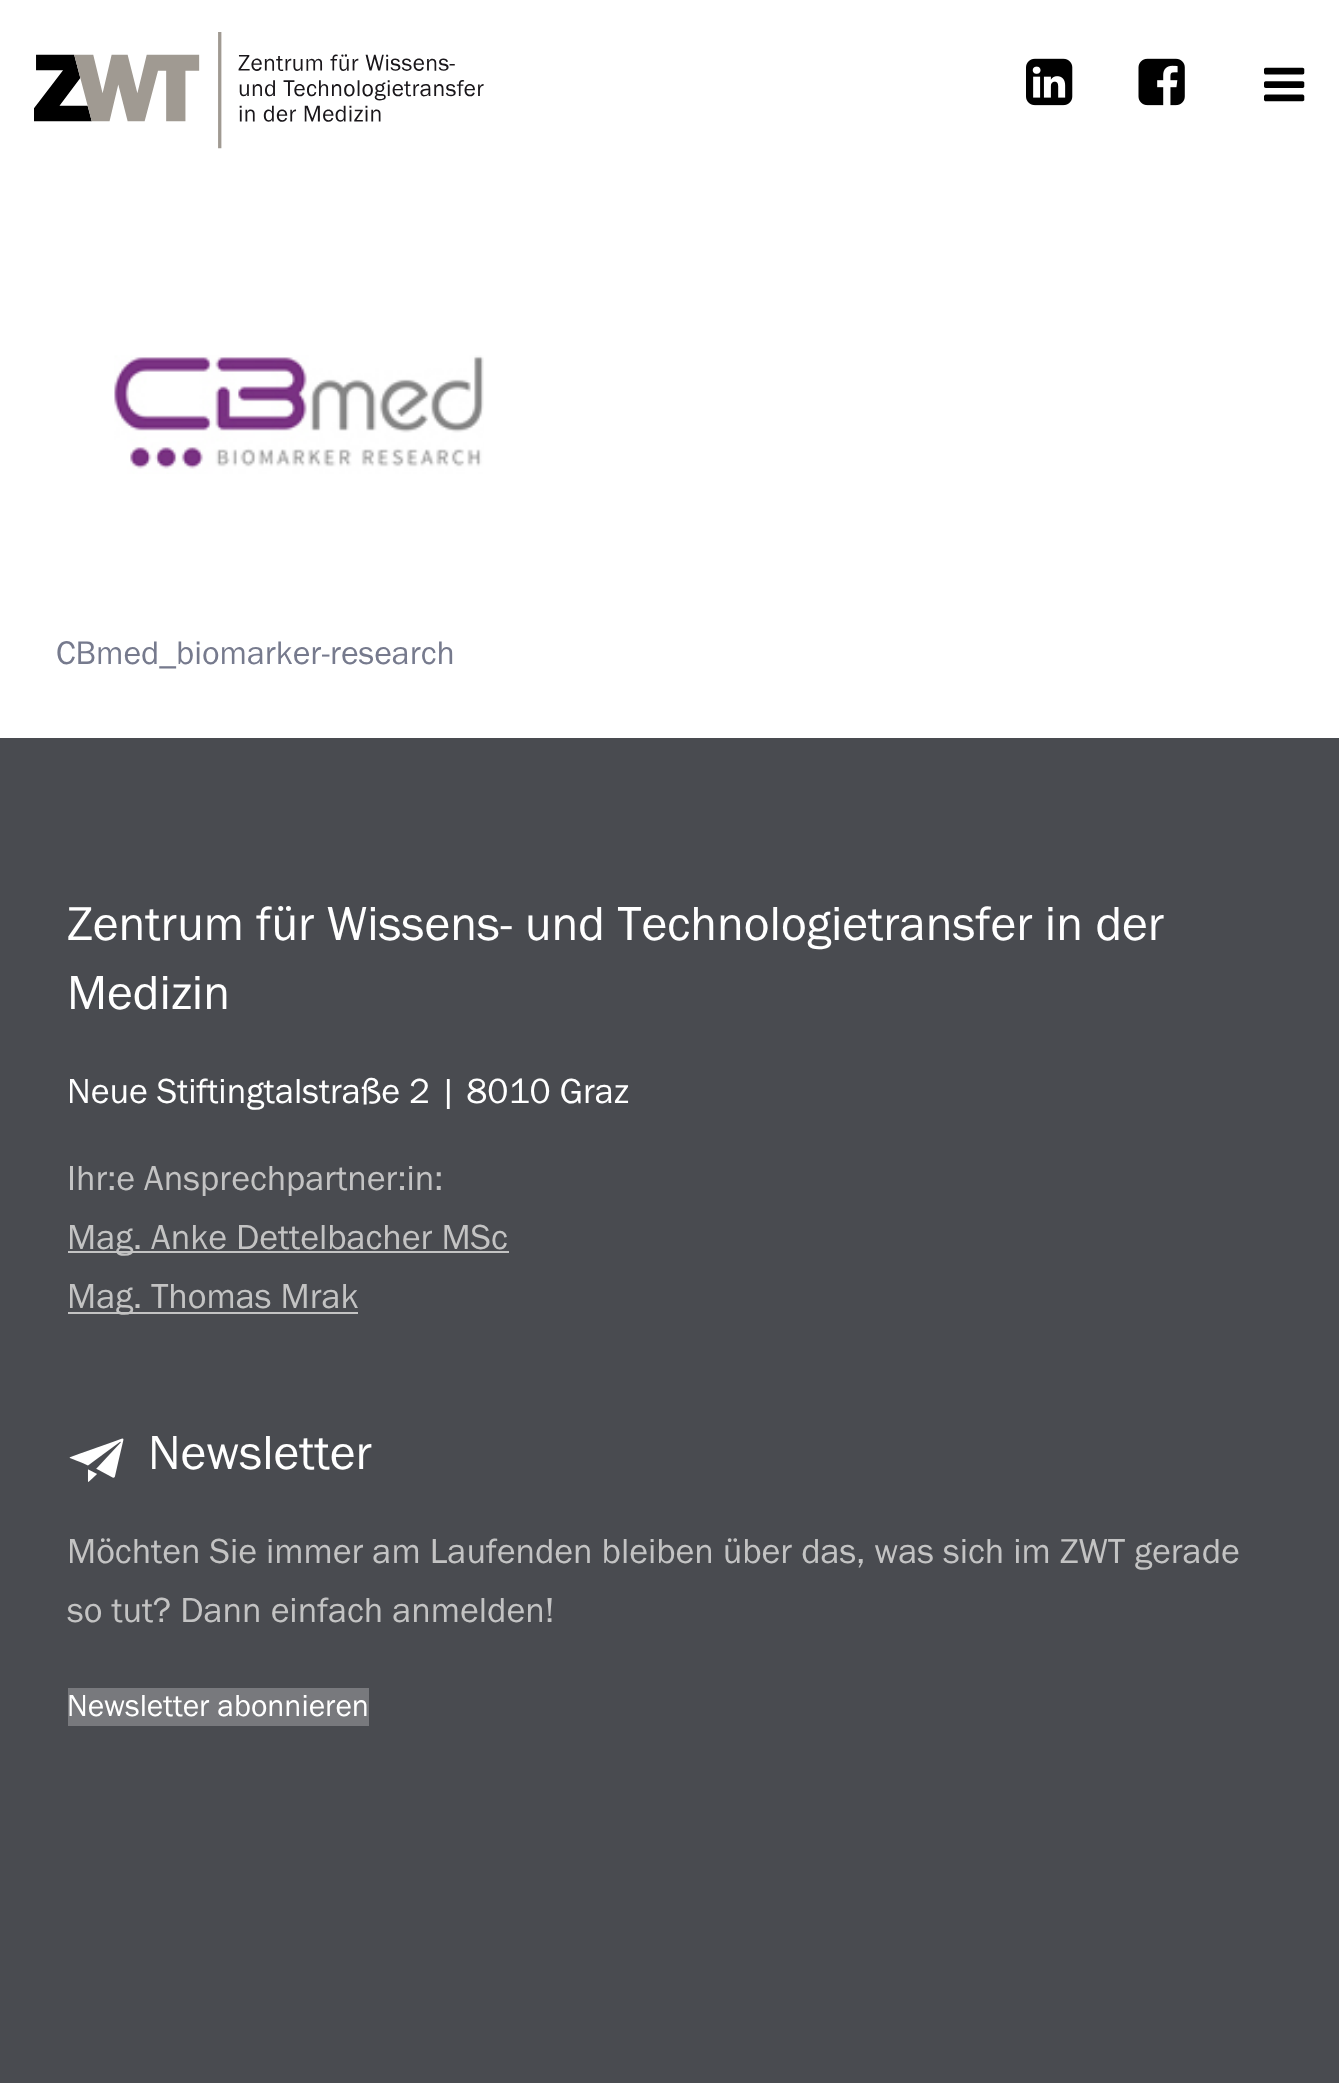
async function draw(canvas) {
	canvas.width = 1339;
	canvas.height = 2083;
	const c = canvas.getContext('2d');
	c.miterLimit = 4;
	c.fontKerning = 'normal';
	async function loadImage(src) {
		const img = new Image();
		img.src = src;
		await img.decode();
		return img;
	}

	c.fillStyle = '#fff';
	c.fillRect(0, 0, 1339, 2083);
	c.drawImage(await loadImage('img1.png'), 34, 32, 450, 117);
	c.drawImage(await loadImage('img2.png'), 1026, 58, 47, 48);
	c.drawImage(await loadImage('img3.png'), 1138, 58, 47, 48);
	c.font = '47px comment';
	c.fillStyle = '#000';
	c.fillText('!', 1264, 101);
	c.drawImage(await loadImage('img4.png'), 114, 355, 370, 119);
	c.font = '33.75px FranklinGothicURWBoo';
	c.fillStyle = '#767a8d';
	c.fillText('CBmed_biomarker-research', 56, 664);
	c.fillStyle = '#494b50';
	c.fillRect(0, 738, 1339, 1345);
	c.font = '49.5px FranklinGothicURWBoo';
	c.fillStyle = '#fff';
	c.fillText('Zentrum für Wissens- und Technologietransfer in der', 67, 940);
	c.fillText('Medizin', 67, 1009);
	c.font = '36px FranklinGothicURWBoo';
	c.fillText('Neue Stiftingtalstraße 2 | 8010 Graz', 67, 1103);
	c.fillStyle = '#c3c3c3';
	c.fillText('Ihr:e Ansprechpartner:in:', 67, 1190);
	c.fillRect(68, 1251, 441, 2);
	c.fillText('Mag. Anke Dettelbacher MSc', 67, 1249);
	c.fillRect(68, 1312, 290, 2);
	c.fillText('Mag. Thomas Mrak', 67, 1308);
	c.drawImage(await loadImage('img5.png'), 69, 1438, 55, 44);
	c.font = '49.5px FranklinGothicURWBoo';
	c.fillStyle = '#fff';
	c.fillText('Newsletter', 148, 1469);
	c.font = '36px FranklinGothicURWBoo';
	c.fillStyle = '#c3c3c3';
	c.fillText('Möchten Sie immer am Laufenden bleiben über das, was sich im ZWT gerade', 67, 1563);
	c.fillText('so tut? Dann einfach anmelden!', 67, 1622);
	c.fillStyle = '#78797d';
	c.fillRect(68, 1688, 301, 38);
	c.font = '31.5px FranklinGothicURWBoo';
	c.fillStyle = '#fff';
	c.fillText('Newsletter abonnieren', 67, 1716);
}

draw(document.querySelector('canvas'));
